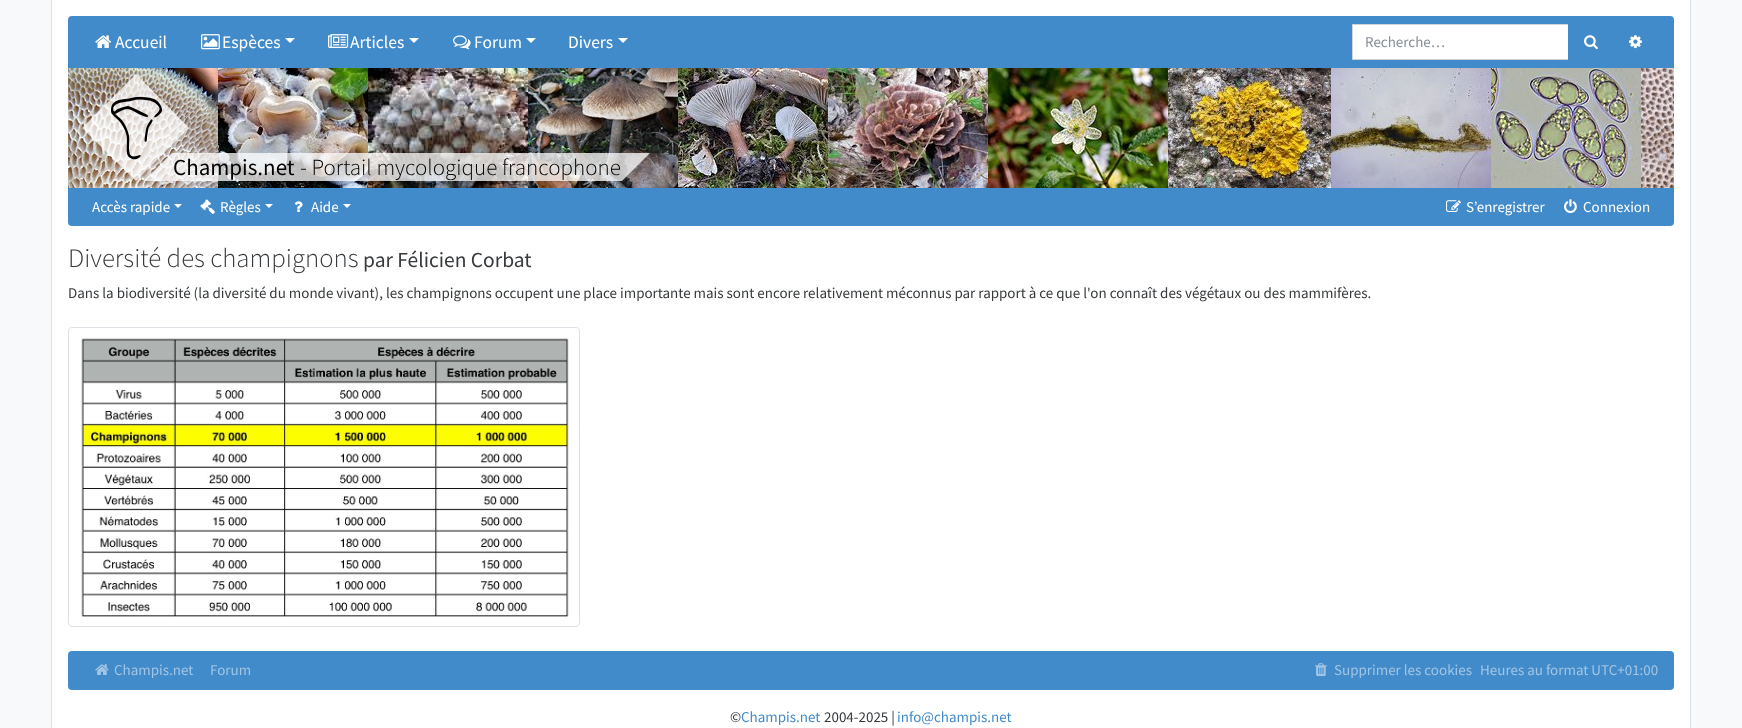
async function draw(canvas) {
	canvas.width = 1742;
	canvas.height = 728;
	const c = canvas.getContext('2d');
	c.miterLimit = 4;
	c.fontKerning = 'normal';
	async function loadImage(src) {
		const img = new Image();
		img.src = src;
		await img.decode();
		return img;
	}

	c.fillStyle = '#f8f9fa';
	c.fillRect(0, 0, 1742, 728);
	c.fillStyle = '#fff';
	c.beginPath();
	c.rect(51.5, -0.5, 1639, 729);
	c.fill();
	c.strokeStyle = '#dee2e6';
	c.stroke();
	c.fillStyle = '#428bca';
	c.beginPath();
	c.roundRect(68, 16, 1606, 52, [4, 4, 0, 0]);
	c.fill();
	c.drawImage(await loadImage('img1.png'), 95, 35, 17, 13);
	c.font = '17.5px Source Sans Pro';
	c.fillStyle = '#fff';
	c.fillText('Accueil', 115, 48);
	c.drawImage(await loadImage('img2.png'), 201, 34, 19, 16);
	c.fillText('Espèces', 222, 48);
	c.beginPath();
	c.moveTo(285, 38);
	c.lineTo(295, 38);
	c.lineTo(290, 43);
	c.closePath();
	c.fill();
	c.drawImage(await loadImage('img3.png'), 328, 34, 21, 14);
	c.fillText('Articles', 350, 48);
	c.beginPath();
	c.moveTo(409, 38);
	c.lineTo(419, 38);
	c.lineTo(414, 43);
	c.closePath();
	c.fill();
	c.drawImage(await loadImage('img4.png'), 453, 35, 18, 15);
	c.fillText('Forum', 474, 48);
	c.beginPath();
	c.moveTo(526, 38);
	c.lineTo(536, 38);
	c.lineTo(531, 43);
	c.closePath();
	c.fill();
	c.fillText('Divers', 568, 48);
	c.beginPath();
	c.moveTo(618, 38);
	c.lineTo(628, 38);
	c.lineTo(623, 43);
	c.closePath();
	c.fill();
	c.beginPath();
	c.rect(1352.5, 24.5, 216, 35);
	c.fill();
	c.strokeStyle = '#ced4da';
	c.stroke();
	c.font = '15px Source Sans Pro';
	c.fillStyle = '#868e96';
	c.fillText('Recherche…', 1365, 47);
	c.fillStyle = '#428bca';
	c.fillRect(1568, 24, 1, 36);
	c.drawImage(await loadImage('img5.png'), 1584, 35, 14, 15);
	c.drawImage(await loadImage('img6.png'), 1629, 35, 13, 14);
	c.drawImage(await loadImage('img8.png'), 68, 68, 150, 120);
	c.drawImage(await loadImage('img9.png'), 218, 68, 150, 120);
	c.drawImage(await loadImage('img10.png'), 368, 68, 160, 120);
	c.drawImage(await loadImage('img11.png'), 528, 68, 150, 120);
	c.fillStyle = '#ffffffbf';
	c.beginPath();
	c.moveTo(172, 153);
	c.lineTo(650, 153);
	c.lineTo(622, 181);
	c.lineTo(144, 181);
	c.closePath();
	c.fill();
	c.font = '23px Source Sans Pro';
	c.fillStyle = '#000';
	c.fillText('Champis.net', 173, 175);
	c.fillStyle = '#ffffffbf';
	c.beginPath();
	c.moveTo(136, 74);
	c.lineTo(189, 128);
	c.lineTo(136, 181);
	c.lineTo(82, 128);
	c.closePath();
	c.fill();
	c.drawImage(await loadImage('img7.png'), 111, 96, 51, 64);
	c.drawImage(await loadImage('img12.png'), 678, 68, 150, 120);
	c.drawImage(await loadImage('img13.png'), 828, 68, 160, 120);
	c.drawImage(await loadImage('img14.png'), 988, 68, 180, 120);
	c.drawImage(await loadImage('img15.png'), 1168, 68, 163, 120);
	c.drawImage(await loadImage('img16.png'), 1331, 68, 160, 120);
	c.drawImage(await loadImage('img17.png'), 1491, 68, 150, 120);
	c.drawImage(await loadImage('img18.png'), 1641, 68, 33, 120);
	c.save();
	c.beginPath();
	c.moveTo(172, 152.5);
	c.lineTo(650, 152.5);
	c.lineTo(622, 180.5);
	c.lineTo(144, 180.5);
	c.closePath();
	c.clip();
	c.font = '300 23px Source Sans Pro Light';
	c.fillStyle = '#000';
	c.fillText('- Portail mycologique francophone', 300, 175);
	c.restore();
	c.fillStyle = '#428bca';
	c.beginPath();
	c.roundRect(68, 188, 1606, 38, [0, 0, 4, 4]);
	c.fill();
	c.font = '15px Source Sans Pro';
	c.fillStyle = '#fff';
	c.fillText('Accès rapide', 92, 212);
	c.beginPath();
	c.moveTo(174, 204);
	c.lineTo(182, 204);
	c.lineTo(178, 208);
	c.closePath();
	c.fill();
	c.drawImage(await loadImage('img19.png'), 200, 199, 15, 15);
	c.fillText('Règles', 220, 212);
	c.beginPath();
	c.moveTo(265, 204);
	c.lineTo(273, 204);
	c.lineTo(269, 208);
	c.closePath();
	c.fill();
	c.drawImage(await loadImage('img20.png'), 294, 201, 9, 11);
	c.fillText('Aide', 311, 212);
	c.beginPath();
	c.moveTo(343, 204);
	c.lineTo(351, 204);
	c.lineTo(347, 208);
	c.closePath();
	c.fill();
	c.drawImage(await loadImage('img21.png'), 1446, 200, 15, 12);
	c.fillText('S’enregistrer', 1466, 212);
	c.drawImage(await loadImage('img22.png'), 1564, 199, 13, 15);
	c.fillText('Connexion', 1583, 212);
	c.font = '300 26.75px Source Sans Pro Light';
	c.fillStyle = '#373a3c';
	c.fillText('Diversité des champignons', 68, 267);
	c.font = '21.5px Source Sans Pro';
	c.fillText('par Félicien Corbat', 363, 267);
	c.font = '15px Source Sans Pro';
	c.fillText('Dans la biodiversité (la diversité du monde vivant), les champignons occupent une place importante mais sont encore relativement méconnus par rapport à ce que l\'on connaît des végétaux ou des mammifères.', 68, 298);
	c.beginPath();
	c.roundRect(68.5, 327.5, 511, 299, 3.5);
	c.strokeStyle = '#dee2e6';
	c.stroke();
	c.drawImage(await loadImage('img23.png'), 81, 338, 488, 279);
	c.fillStyle = '#428bca';
	c.beginPath();
	c.roundRect(68, 651, 1606, 39, 4);
	c.fill();
	c.drawImage(await loadImage('img24.png'), 95, 664, 14, 11);
	c.fillStyle = '#a1c5e5';
	c.fillText('Champis.net', 114, 675);
	c.fillText('Forum', 210, 675);
	c.drawImage(await loadImage('img25.png'), 1315, 663, 12, 14);
	c.fillText('Supprimer les cookies', 1334, 675);
	c.fillText('Heures au format UTC+01:00', 1480, 675);
	c.fillStyle = '#373a3c';
	c.fillText('©', 730, 722);
	c.fillStyle = '#428bca';
	c.fillText('Champis.net', 741, 722);
	c.fillStyle = '#373a3c';
	c.fillText('2004-2025 |', 824, 722);
	c.fillStyle = '#428bca';
	c.fillText('info@champis.net', 897, 722);
}

draw(document.querySelector('canvas'));
